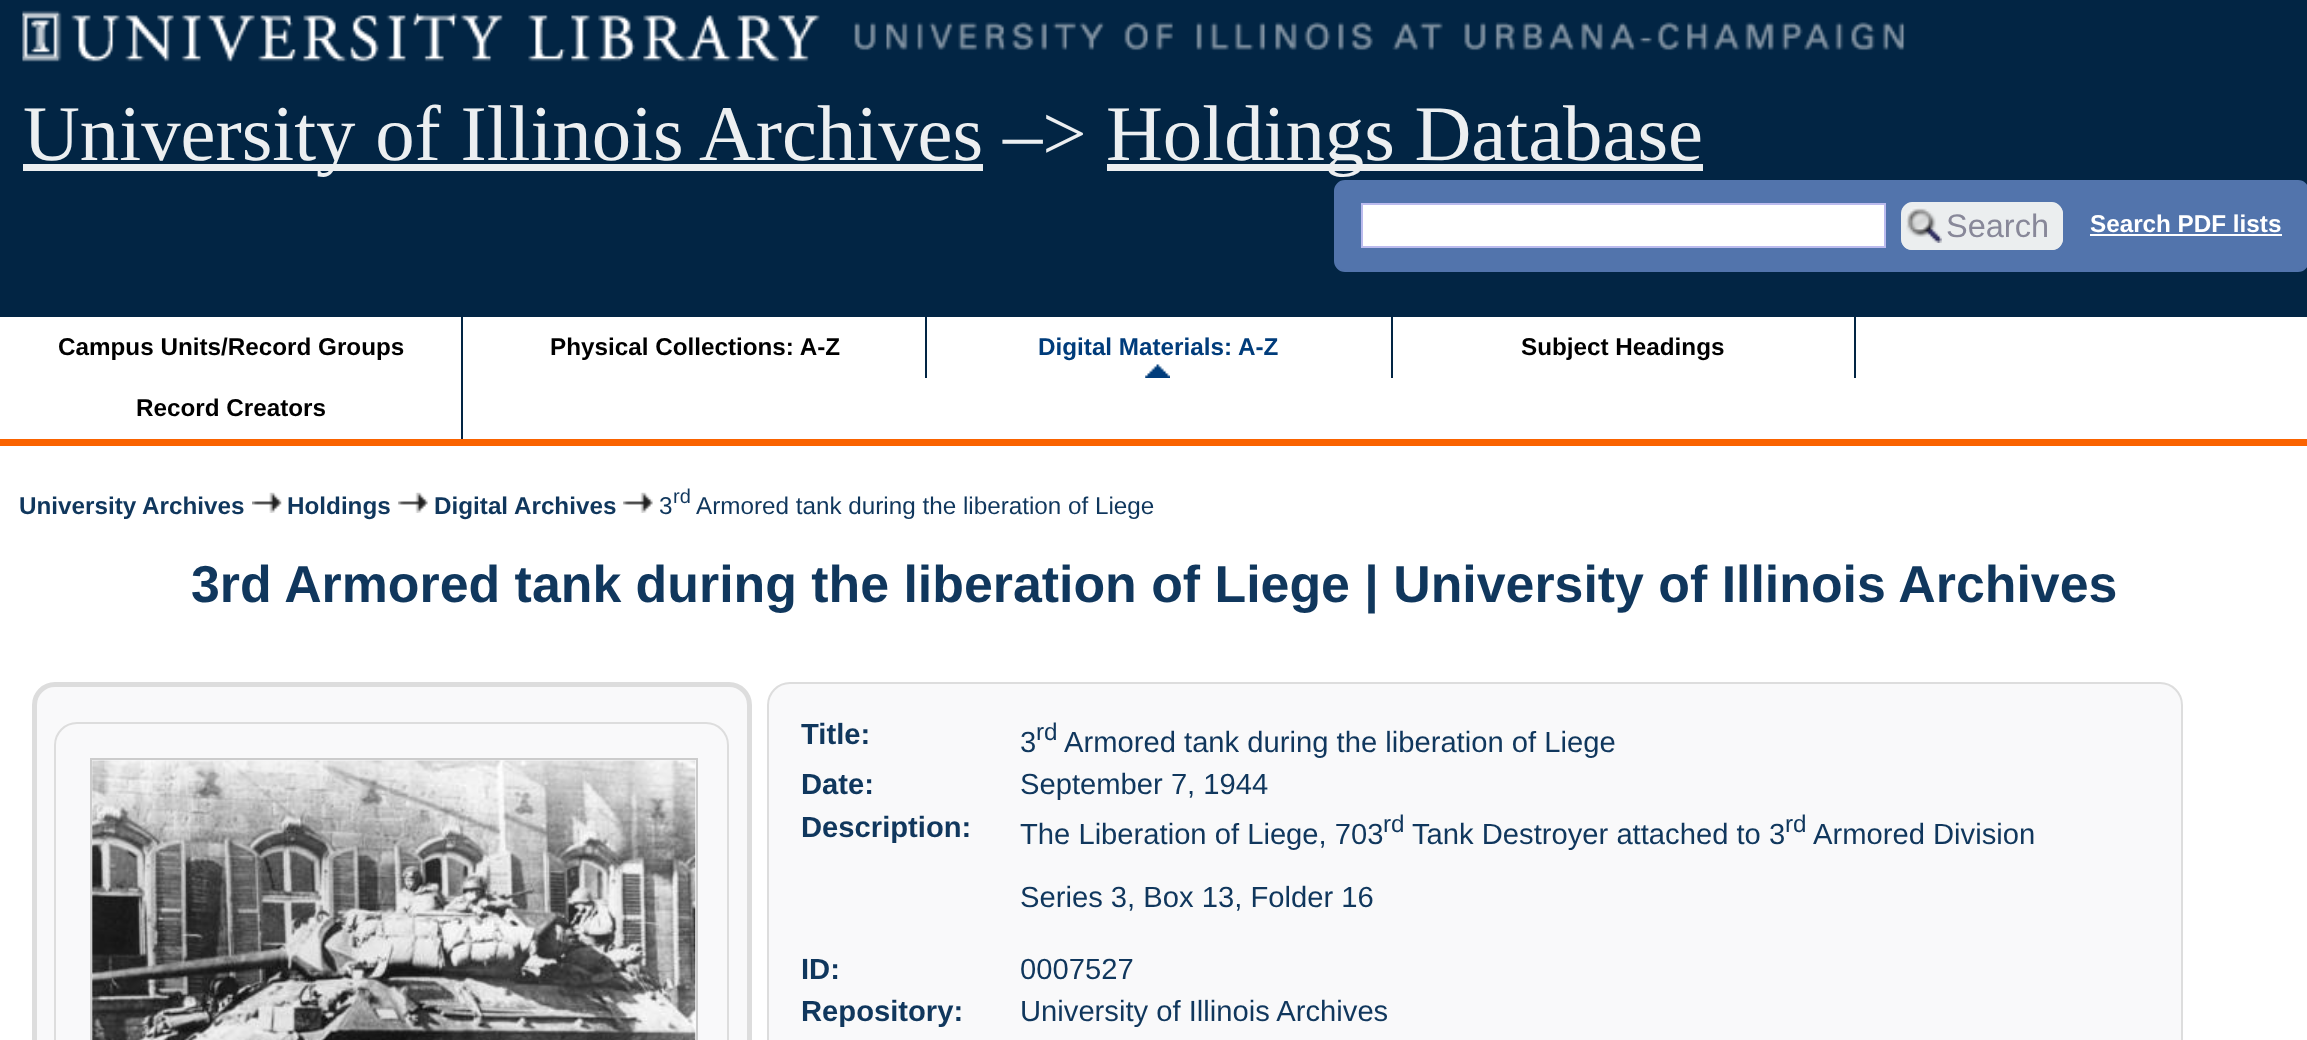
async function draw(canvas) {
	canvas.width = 2307;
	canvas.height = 1040;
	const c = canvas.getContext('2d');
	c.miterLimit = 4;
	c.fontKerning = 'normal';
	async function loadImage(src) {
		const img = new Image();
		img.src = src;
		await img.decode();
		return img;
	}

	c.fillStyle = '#fff';
	c.fillRect(0, 0, 2307, 1040);
	c.fillStyle = '#022544';
	c.fillRect(0, 0, 2307, 317);
	c.drawImage(await loadImage('img1.png'), 22, 10, 1883, 52);
	c.fillStyle = '#fa6300';
	c.fillRect(0, 439, 2307, 7);
	c.fillStyle = '#eceff1';
	c.fillRect(23, 164, 960, 7);
	c.font = '78.75px Liberation Serif';
	c.fillText('University of Illinois Archives –>', 23, 160);
	c.fillRect(1107, 164, 596, 7);
	c.fillText('Holdings Database', 1106, 160);
	c.fillStyle = '#5274ac';
	c.beginPath();
	c.roundRect(1335, 181, 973, 90, 10);
	c.fill();
	c.strokeStyle = '#5274ac';
	c.lineWidth = 2;
	c.stroke();
	c.fillStyle = '#fff';
	c.beginPath();
	c.rect(1362, 204, 523, 43);
	c.fill();
	c.strokeStyle = '#bbe';
	c.stroke();
	c.fillStyle = '#ebeeef';
	c.beginPath();
	c.roundRect(1901, 203, 162, 47, 11);
	c.fill();
	c.drawImage(await loadImage('img2.png'), 1906, 207, 36, 36);
	c.beginPath();
	c.moveTo(1912, 202);
	c.lineTo(2052, 202);
	c.bezierCurveTo(2058, 202, 2063, 208, 2063, 214);
	c.lineTo(2063, 238);
	c.bezierCurveTo(2063, 245, 2058, 250, 2052, 250);
	c.lineTo(1912, 250);
	c.bezierCurveTo(1906, 250, 1901, 245, 1901, 238);
	c.lineTo(1901, 214);
	c.bezierCurveTo(1901, 208, 1906, 202, 1912, 202);
	c.closePath();
	c.moveTo(1912, 205);
	c.lineTo(2052, 205);
	c.bezierCurveTo(2057, 205, 2061, 209, 2061, 214);
	c.lineTo(2061, 238);
	c.bezierCurveTo(2061, 243, 2057, 248, 2052, 248);
	c.lineTo(1912, 248);
	c.bezierCurveTo(1906, 248, 1901, 243, 1901, 238);
	c.lineTo(1901, 214);
	c.bezierCurveTo(1901, 209, 1906, 205, 1912, 205);
	c.closePath();
	c.fill('evenodd');
	c.font = '32.5px Liberation Sans';
	c.fillStyle = '#889';
	c.fillText('Search', 1946, 237);
	c.font = 'bold 24.25px Liberation Sans';
	c.fillStyle = '#fff';
	c.fillText('Search PDF lists', 2090, 232);
	c.fillRect(2090, 234, 192, 2);
	c.fillStyle = '#022544';
	c.fillRect(461, 317, 2, 122);
	c.fillStyle = '#000';
	c.fillText('Campus Units/Record Groups', 58, 355);
	c.fillStyle = '#022544';
	c.fillRect(925, 317, 2, 61);
	c.fillStyle = '#000';
	c.fillText('Physical Collections: A-Z', 550, 355);
	c.drawImage(await loadImage('img3.png'), 1145, 364, 25, 14);
	c.fillStyle = '#022544';
	c.fillRect(1391, 317, 2, 61);
	c.fillStyle = '#003c7b';
	c.fillText('Digital Materials: A-Z', 1038, 355);
	c.fillStyle = '#022544';
	c.fillRect(1854, 317, 2, 61);
	c.fillStyle = '#000';
	c.fillText('Subject Headings', 1521, 355);
	c.fillText('Record Creators', 136, 416);
	c.fillStyle = '#10375d';
	c.fillText('University Archives', 19, 514);
	c.drawImage(await loadImage('img4.png'), 252, 492, 30, 21);
	c.fillText('Holdings', 287, 514);
	c.drawImage(await loadImage('img5.png'), 398, 492, 30, 21);
	c.fillText('Digital Archives', 434, 514);
	c.drawImage(await loadImage('img6.png'), 623, 492, 30, 21);
	c.font = '24.25px Liberation Sans';
	c.fillText('3', 659, 514);
	c.font = '20px Liberation Sans';
	c.fillText('rd', 673, 503);
	c.font = '24.25px Liberation Sans';
	c.fillText('Armored tank during the liberation of Liege', 696, 514);
	c.font = 'bold 51.85px Liberation Sans';
	c.fillText('3rd Armored tank during the liberation of Liege | University of Illinois Archives', 191, 602);
	c.fillStyle = '#f9f9fa';
	c.beginPath();
	c.roundRect(34.5, 684.5, 715, 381, 20.5);
	c.fill();
	c.strokeStyle = '#ddd';
	c.lineWidth = 5;
	c.stroke();
	c.beginPath();
	c.roundRect(55, 723, 673, 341, 22);
	c.lineWidth = 2;
	c.stroke();
	c.strokeStyle = '#ccc';
	c.strokeRect(91, 759, 606, 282);
	c.drawImage(await loadImage('img7.png'), 92, 760, 604, 280);
	c.beginPath();
	c.roundRect(768, 683, 1414, 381, 22);
	c.fill();
	c.strokeStyle = '#ddd';
	c.stroke();
	c.font = 'bold 29.2px Liberation Sans';
	c.fillStyle = '#10375d';
	c.fillText('Title:', 801, 744);
	c.font = '29.2px Liberation Sans';
	c.fillText('3', 1020, 752);
	c.font = '24.25px Liberation Sans';
	c.fillText('rd', 1036, 740);
	c.font = '29.2px Liberation Sans';
	c.fillText('Armored tank during the liberation of Liege', 1064, 752);
	c.font = 'bold 29.2px Liberation Sans';
	c.fillText('Date:', 801, 794);
	c.font = '29.2px Liberation Sans';
	c.fillText('September 7, 1944', 1020, 794);
	c.font = 'bold 29.2px Liberation Sans';
	c.fillText('Description:', 801, 837);
	c.font = '29.2px Liberation Sans';
	c.fillText('The Liberation of Liege, 703', 1020, 844);
	c.font = '24.25px Liberation Sans';
	c.fillText('rd', 1383, 832);
	c.font = '29.2px Liberation Sans';
	c.fillText('Tank Destroyer attached to 3', 1412, 844);
	c.font = '24.25px Liberation Sans';
	c.fillText('rd', 1785, 832);
	c.font = '29.2px Liberation Sans';
	c.fillText('Armored Division', 1813, 844);
	c.fillText('Series 3, Box 13, Folder 16', 1020, 907);
	c.font = 'bold 29.2px Liberation Sans';
	c.fillText('ID:', 801, 979);
	c.font = '29.2px Liberation Sans';
	c.fillText('0007527', 1020, 979);
	c.font = 'bold 29.2px Liberation Sans';
	c.fillText('Repository:', 801, 1021);
	c.font = '29.2px Liberation Sans';
	c.fillText('University of Illinois Archives', 1020, 1021);
}

draw(document.querySelector('canvas'));
